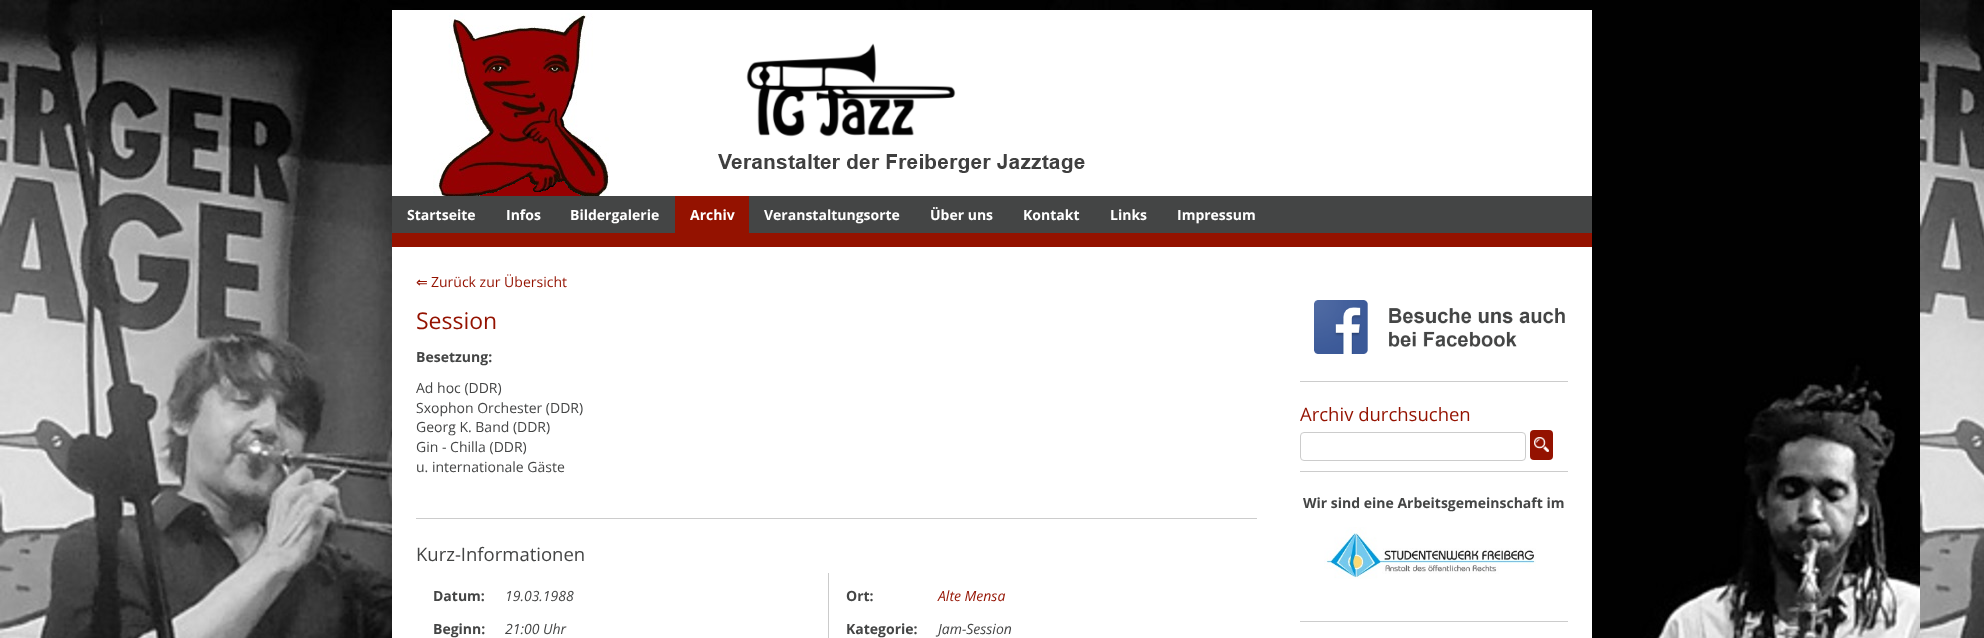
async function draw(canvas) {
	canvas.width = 1984;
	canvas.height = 638;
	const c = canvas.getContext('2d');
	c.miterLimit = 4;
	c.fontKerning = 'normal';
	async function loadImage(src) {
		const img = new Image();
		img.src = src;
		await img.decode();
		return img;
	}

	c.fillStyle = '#fff';
	c.fillRect(0, 0, 1984, 638);
	c.drawImage(await loadImage('img1.png'), 0, 0, 1984, 638);
	c.fillRect(392, 10, 1200, 186);
	c.drawImage(await loadImage('img2.png'), 433, 13, 652, 183);
	c.fillStyle = '#941200';
	c.fillRect(392, 233, 1200, 14);
	c.fillStyle = '#444545';
	c.fillRect(392, 196, 1200, 37);
	c.font = 'bold 14px Open Sans';
	c.fillStyle = '#fff';
	for (const [text, x, y] of [
		['Startseite', 407, 220],
		['Infos', 506, 220],
		['Bildergalerie', 570, 220],
	]) {
		c.fillText(text, x, y);
	}
	c.fillStyle = '#941200';
	c.fillRect(675, 196, 74, 37);
	c.fillStyle = '#fff';
	for (const [text, x, y] of [
		['Archiv', 690, 220],
		['Veranstaltungsorte', 764, 220],
		['Über uns', 930, 220],
		['Kontakt', 1023, 220],
		['Links', 1110, 220],
		['Impressum', 1177, 220],
	]) {
		c.fillText(text, x, y);
	}
	c.fillRect(392, 247, 1200, 391);
	c.font = '14px DejaVu Sans';
	c.fillStyle = '#941200';
	c.fillText('⇐', 416, 287);
	c.font = '14px Open Sans';
	c.fillText('Zurück zur Übersicht', 431, 287);
	c.font = '23px Open Sans';
	c.fillText('Session', 416, 329);
	c.font = 'bold 14px Open Sans';
	c.fillStyle = '#444545';
	c.fillText('Besetzung:', 416, 362);
	c.font = '14px Open Sans';
	for (const [text, x, y] of [
		['Ad hoc (DDR)', 416, 393],
		['Sxophon Orchester (DDR)', 416, 413],
		['Georg K. Band (DDR)', 416, 432],
		['Gin - Chilla (DDR)', 416, 452],
		['u. internationale Gäste', 416, 472],
	]) {
		c.fillText(text, x, y);
	}
	c.fillStyle = '#ccc';
	c.fillRect(416, 518, 841, 1);
	c.font = '18.5px Open Sans';
	c.fillStyle = '#444545';
	c.fillText('Kurz-Informationen', 416, 561);
	c.font = 'bold 14px Open Sans';
	c.fillText('Datum:', 433, 601);
	c.font = 'italic 14px Open Sans';
	c.fillText('19.03.1988', 505, 601);
	c.font = 'bold 14px Open Sans';
	c.fillText('Beginn:', 433, 634);
	c.font = 'italic 14px Open Sans';
	c.fillText('21:00 Uhr', 505, 634);
	c.fillStyle = '#cbcbcb';
	c.fillRect(828, 573, 1, 65);
	c.font = 'bold 14px Open Sans';
	c.fillStyle = '#444545';
	c.fillText('Ort:', 846, 601);
	c.font = 'italic 14px Open Sans';
	c.fillStyle = '#941200';
	c.fillText('Alte Mensa', 938, 601);
	c.font = 'bold 14px Open Sans';
	c.fillStyle = '#444545';
	c.fillText('Kategorie:', 846, 634);
	c.font = 'italic 14px Open Sans';
	c.fillText('Jam-Session', 938, 634);
	c.drawImage(await loadImage('img3.png'), 1314, 300, 251, 54);
	c.fillStyle = '#ccc';
	c.fillRect(1300, 381, 268, 1);
	c.font = '18.5px Open Sans';
	c.fillStyle = '#941200';
	c.fillText('Archiv durchsuchen', 1300, 421);
	c.beginPath();
	c.roundRect(1300.5, 432.5, 225, 28, 3.5);
	c.strokeStyle = '#ccc';
	c.stroke();
	c.beginPath();
	c.roundRect(1530, 430, 23, 30, 4);
	c.fill();
	c.drawImage(await loadImage('img4.png'), 1534, 437, 15, 15);
	c.fillStyle = '#ccc';
	c.fillRect(1300, 471, 268, 1);
	c.font = 'bold 14px Open Sans';
	c.fillStyle = '#444545';
	c.fillText('Wir sind eine Arbeitsgemeinschaft im', 1303, 508);
	c.drawImage(await loadImage('img5.png'), 1324, 527, 212, 52);
	c.fillStyle = '#ccc';
	c.fillRect(1300, 621, 268, 1);
}

draw(document.querySelector('canvas'));
